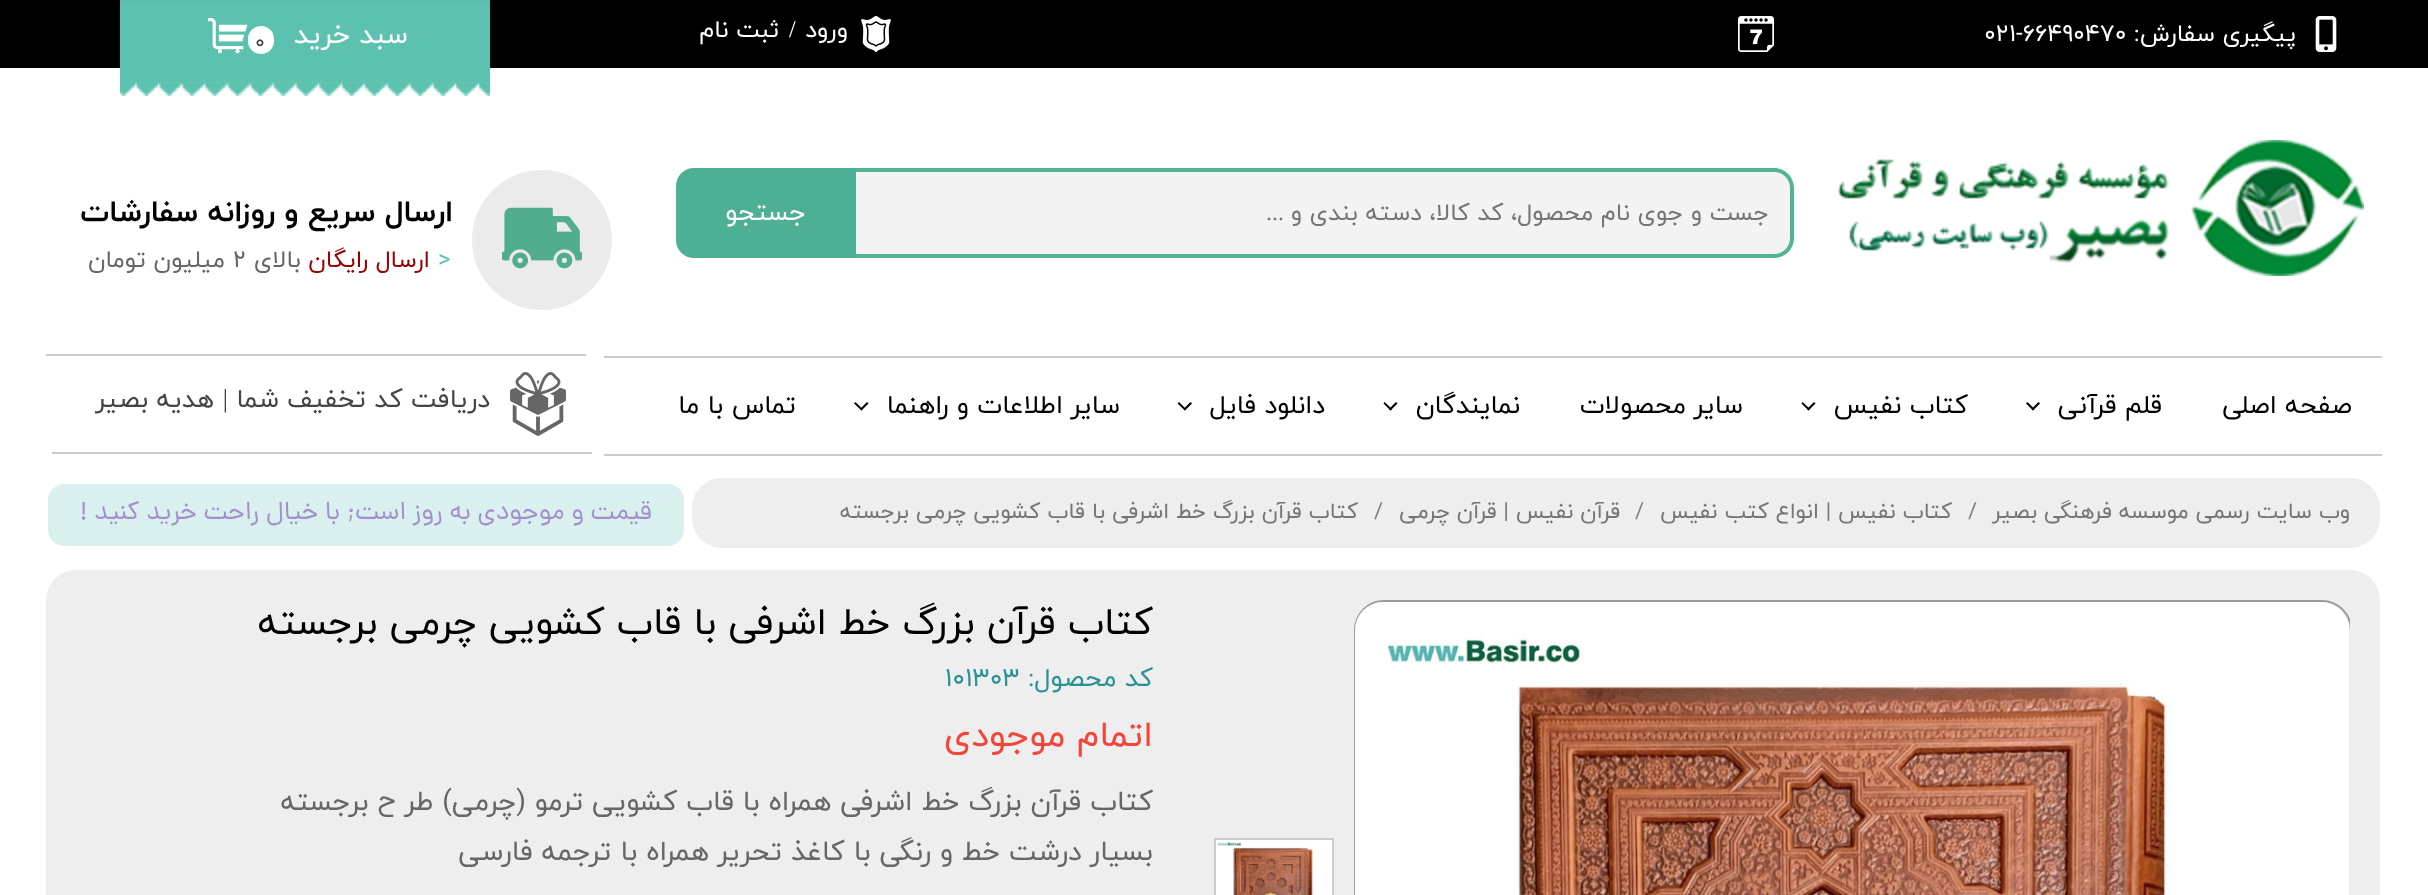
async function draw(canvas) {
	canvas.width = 2428;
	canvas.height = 895;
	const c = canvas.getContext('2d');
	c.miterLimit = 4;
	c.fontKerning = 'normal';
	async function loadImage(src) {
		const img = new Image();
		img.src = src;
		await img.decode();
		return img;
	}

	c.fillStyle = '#fff';
	c.fillRect(0, 0, 2428, 895);
	c.fillStyle = '#000';
	c.fillRect(0, 0, 2428, 68);
	c.drawImage(await loadImage('img1.png'), 2315, 16, 22, 36);
	c.direction = 'rtl';
	c.font = '24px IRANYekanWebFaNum';
	c.fillStyle = '#fff';
	c.fillText('پیگیری سفارش:', 2296, 41);
	c.direction = 'ltr';
	c.fillText('021-66490470', 1984, 41);
	c.drawImage(await loadImage('img2.png'), 1738, 16, 36, 36);
	c.drawImage(await loadImage('img3.png'), 861, 16, 30, 36);
	c.direction = 'rtl';
	c.font = '24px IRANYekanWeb';
	c.fillText('ورود', 848, 37);
	c.direction = 'ltr';
	c.font = '24px Liberation Serif';
	c.fillText('/', 789, 37);
	c.direction = 'rtl';
	c.font = '24px IRANYekanWeb';
	c.fillText('ثبت نام', 779, 37);
	c.drawImage(await loadImage('img4.png'), 120, 0, 370, 96);
	c.font = '28px IRANYekanWeb';
	c.fillText('سبد خرید', 408, 43);
	c.beginPath();
	c.roundRect(248, 26, 26, 28, 13);
	c.fill();
	c.drawImage(await loadImage('img5.png'), 208, 18, 40, 36);
	c.direction = 'ltr';
	c.font = '20px IRANYekanWebFaNum';
	c.fillStyle = '#444';
	c.fillText('۰', 255, 48);
	c.drawImage(await loadImage('img6.png'), 1837, 140, 527, 136);
	c.fillStyle = '#f3f3f3';
	c.beginPath();
	c.roundRect(856, 168, 938, 90, [0, 20, 20, 0]);
	c.fill();
	c.fillStyle = '#4fb595';
	c.beginPath();
	c.moveTo(856, 168);
	c.lineTo(1774, 168);
	c.bezierCurveTo(1785, 168, 1794, 177, 1794, 188);
	c.lineTo(1794, 238);
	c.bezierCurveTo(1794, 249, 1785, 258, 1774, 258);
	c.lineTo(856, 258);
	c.closePath();
	c.moveTo(856, 172);
	c.lineTo(1774, 172);
	c.bezierCurveTo(1783, 172, 1790, 179, 1790, 188);
	c.lineTo(1790, 238);
	c.bezierCurveTo(1790, 247, 1783, 254, 1774, 254);
	c.lineTo(856, 254);
	c.closePath();
	c.fill('evenodd');
	c.direction = 'rtl';
	c.font = '24px IRANYekanWeb';
	c.fillStyle = '#757575';
	c.fillText('جست و جوی نام محصول، کد کالا، دسته بندی و', 1769, 220);
	c.font = '24px Liberation Serif';
	c.fillText('...', 1284, 220);
	c.fillStyle = '#4daf94';
	c.beginPath();
	c.roundRect(676, 168, 180, 90, [18, 0, 0, 18]);
	c.fill();
	c.font = '26px IRANYekanWeb';
	c.fillStyle = '#fff';
	c.fillText('جستجو', 806, 220);
	c.fillStyle = '#ebebeb';
	c.beginPath();
	c.arc(542, 240, 70, 0, 2 * Math.PI);
	c.fill();
	c.drawImage(await loadImage('img7.png'), 502, 207, 80, 62);
	c.font = 'bold 30px IRANYekanWeb';
	c.fillStyle = '#000';
	c.fillText('ارسال سریع و روزانه سفارشات', 453, 221);
	c.direction = 'ltr';
	c.font = '24px IRANYekanWebFaNum';
	c.fillStyle = '#5cc1b9';
	c.fillText('>', 438, 267);
	c.direction = 'rtl';
	c.fillStyle = '#900';
	c.fillText('ارسال رایگان', 430, 267);
	c.fillStyle = '#666';
	c.fillText('بالای', 301, 267);
	c.direction = 'ltr';
	c.fillText('2', 233, 267);
	c.direction = 'rtl';
	c.fillText('میلیون تومان', 225, 267);
	c.fillStyle = '#ccc';
	c.fillRect(46, 354, 540, 2);
	c.fillRect(604, 356, 1778, 2);
	c.font = '26px IRANYekanWeb';
	c.fillStyle = '#000';
	c.fillText('صفحه اصلی', 2352, 413);
	c.fillText('قلم قرآنی', 2162, 413);
	c.beginPath();
	c.moveTo(2038.5, 402);
	c.lineTo(2040, 403.5);
	c.lineTo(2033, 410.5);
	c.lineTo(2031.5, 409);
	c.closePath();
	c.fill();
	c.beginPath();
	c.moveTo(2027.5, 402);
	c.lineTo(2034.5, 409);
	c.lineTo(2033, 410.5);
	c.lineTo(2026, 403.5);
	c.closePath();
	c.fill();
	c.fillText('کتاب نفیس', 1968, 413);
	c.beginPath();
	c.moveTo(1814, 402);
	c.lineTo(1815.5, 403.5);
	c.lineTo(1808.5, 410.5);
	c.lineTo(1807, 409);
	c.closePath();
	c.fill();
	c.beginPath();
	c.moveTo(1802.5, 402);
	c.lineTo(1810, 409);
	c.lineTo(1808.5, 410.5);
	c.lineTo(1801.5, 403.5);
	c.closePath();
	c.fill();
	c.fillText('سایر محصولات', 1743, 413);
	c.fillText('نمایندگان', 1520, 413);
	c.beginPath();
	c.moveTo(1396, 402);
	c.lineTo(1397.5, 403.5);
	c.lineTo(1390.5, 410.5);
	c.lineTo(1389, 409);
	c.closePath();
	c.fill();
	c.beginPath();
	c.moveTo(1384.5, 402);
	c.lineTo(1392, 409);
	c.lineTo(1390.5, 410.5);
	c.lineTo(1383.5, 403.5);
	c.closePath();
	c.fill();
	c.fillText('دانلود فایل', 1325, 413);
	c.beginPath();
	c.moveTo(1190.5, 402);
	c.lineTo(1192, 403.5);
	c.lineTo(1185, 410.5);
	c.lineTo(1183.5, 409);
	c.closePath();
	c.fill();
	c.beginPath();
	c.moveTo(1179, 402);
	c.lineTo(1186, 409);
	c.lineTo(1185, 410.5);
	c.lineTo(1177.5, 403.5);
	c.closePath();
	c.fill();
	c.fillText('سایر اطلاعات و راهنما', 1120, 413);
	c.beginPath();
	c.moveTo(867, 402);
	c.lineTo(868.5, 403.5);
	c.lineTo(861.5, 410.5);
	c.lineTo(860, 409);
	c.closePath();
	c.fill();
	c.beginPath();
	c.moveTo(855.5, 402);
	c.lineTo(862.5, 409);
	c.lineTo(861.5, 410.5);
	c.lineTo(854, 403.5);
	c.closePath();
	c.fill();
	c.fillText('تماس با ما', 796, 413);
	c.fillStyle = '#ccc';
	c.fillRect(604, 454, 1778, 2);
	c.drawImage(await loadImage('img8.png'), 510, 372, 56, 64);
	c.fillStyle = '#444';
	c.fillText('دریافت کد تخفیف شما', 490, 407);
	c.font = '26px Liberation Serif';
	c.fillText('|', 228, 407);
	c.font = '26px IRANYekanWeb';
	c.fillText('هدیه بصیر', 214, 407);
	c.fillStyle = '#ccc';
	c.fillRect(52, 452, 540, 2);
	c.fillStyle = '#eee';
	c.beginPath();
	c.roundRect(692, 478, 1688, 70, 30);
	c.fill();
	c.font = '22px IRANYekanWebFaNum';
	c.fillStyle = '#757575';
	c.fillText('وب سایت رسمی موسسه فرهنگی بصیر', 2350, 518);
	c.letterSpacing = '1px';
	c.direction = 'ltr';
	c.fillStyle = '#7f7f7f';
	c.fillText('/', 1968, 518);
	c.letterSpacing = '0px';
	c.direction = 'rtl';
	c.fillStyle = '#757575';
	c.fillText('کتاب نفیس | انواع کتب نفیس', 1952, 518);
	c.letterSpacing = '1px';
	c.direction = 'ltr';
	c.fillStyle = '#7f7f7f';
	c.fillText('/', 1635, 518);
	c.letterSpacing = '0px';
	c.direction = 'rtl';
	c.fillStyle = '#757575';
	c.fillText('قرآن نفیس | قرآن چرمی', 1620, 518);
	c.letterSpacing = '1px';
	c.direction = 'ltr';
	c.fillStyle = '#7f7f7f';
	c.fillText('/', 1374, 518);
	c.letterSpacing = '0px';
	c.direction = 'rtl';
	c.fillStyle = '#757575';
	c.fillText('کتاب قرآن بزرگ خط اشرفی با قاب کشویی چرمی برجسته', 1358, 518);
	c.fillStyle = '#eee';
	c.beginPath();
	c.roundRect(46, 570, 2334, 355, 30);
	c.fill();
	c.save();
	c.beginPath();
	c.rect(1354, 600, 996, 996);
	c.clip();
	c.beginPath();
	c.roundRect(1355, 601, 996, 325, 29);
	c.strokeStyle = '#9b9b9b';
	c.lineWidth = 2;
	c.stroke();
	c.restore();
	c.drawImage(await loadImage('img9.png'), 1355, 602, 994, 293);
	c.drawImage(await loadImage('img10.png'), 1216, 840, 116, 55);
	c.strokeStyle = '#ccc';
	c.lineWidth = 2;
	c.strokeRect(1215, 839, 118, 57);
	c.font = '38px IRANYekanWebFaNum';
	c.fillStyle = '#000';
	c.fillText('کتاب قرآن بزرگ خط اشرفی با قاب کشویی چرمی برجسته', 1153, 634);
	c.font = '26px IRANYekanWebFaNum';
	c.fillStyle = '#2a9293';
	c.fillText('کد محصول:', 1153, 686);
	c.direction = 'ltr';
	c.fillText('101303', 945, 686);
	c.direction = 'rtl';
	c.font = '36px IRANYekanWeb';
	c.fillStyle = '#f14639';
	c.fillText('اتمام موجودی', 1153, 746);
	c.font = '28px IRANYekanWebFaNum';
	c.fillStyle = '#666';
	c.fillText('کتاب قرآن بزرگ خط اشرفی همراه با قاب کشویی ترمو (چرمی) طر ح برجسته', 1153, 810);
	c.fillText('بسیار درشت خط و رنگی با کاغذ تحریر همراه با ترجمه فارسی', 1153, 860);
	c.fillStyle = '#daf0ee';
	c.beginPath();
	c.roundRect(48, 484, 636, 62, 16);
	c.fill();
	c.font = '26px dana';
	c.fillStyle = '#a190cb';
	c.fillText('قیمت و موجودی به روز است; با خیال راحت خرید کنید', 652, 519);
	c.direction = 'ltr';
	c.fillText('!', 80, 519);
}

draw(document.querySelector('canvas'));
